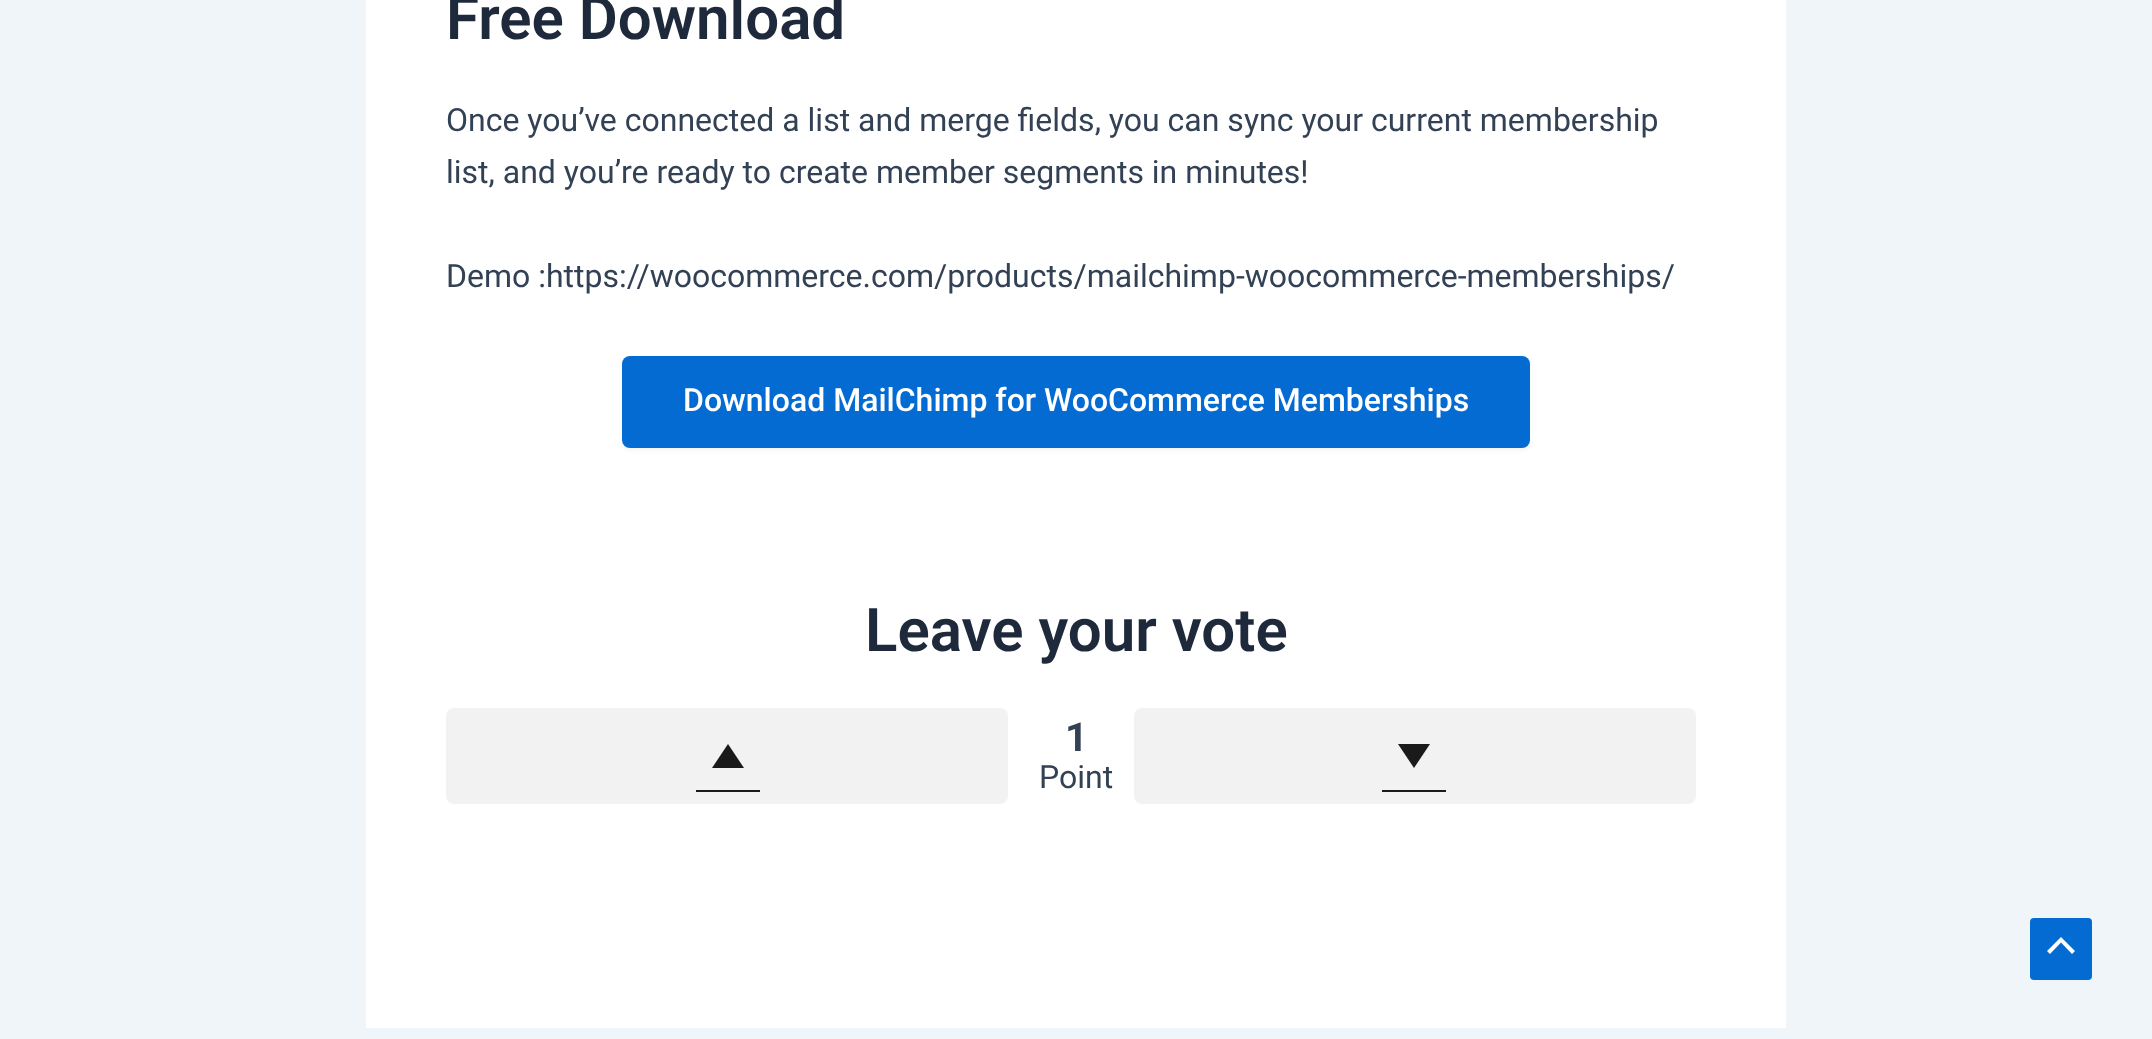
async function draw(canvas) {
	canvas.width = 2152;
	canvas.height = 1039;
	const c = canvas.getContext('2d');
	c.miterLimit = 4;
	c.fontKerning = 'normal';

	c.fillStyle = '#f0f5fa';
	c.fillRect(0, 0, 2152, 1039);
	c.fillStyle = '#fff';
	c.fillRect(366, 0, 1420, 1028);
	c.font = '600 60px Roboto';
	c.fillStyle = '#1e293b';
	c.fillText('Free Download', 446, 39);
	c.font = '32px Roboto';
	c.fillStyle = '#334155';
	for (const [text, x, y] of [
		['Once you’ve connected a list and merge fields, you can sync your current membership', 446, 131],
		['list, and you’re ready to create member segments in minutes!', 446, 183],
		['Demo :https://woocommerce.com/products/mailchimp-woocommerce-memberships/', 446, 287],
	]) {
		c.fillText(text, x, y);
	}
	c.fillStyle = '#0000000d';
	c.filter = 'blur(2px)';
	c.beginPath();
	c.roundRect(622, 358, 908, 92, 8);
	c.fill();
	c.filter = 'none';
	c.fillStyle = '#046bd2';
	c.beginPath();
	c.roundRect(622, 356, 908, 92, 8);
	c.fill();
	c.font = '500 32px Roboto';
	c.fillStyle = '#fff';
	c.fillText('Download MailChimp for WooCommerce Memberships', 683, 411);
	c.font = '600 60px Roboto';
	c.fillStyle = '#1e293b';
	c.fillText('Leave your vote', 865, 651);
	c.fillStyle = '#f2f2f2';
	c.beginPath();
	c.roundRect(446, 708, 562, 96, 8);
	c.fill();
	c.fillStyle = '#1a1a1a';
	c.fillRect(696, 790, 64, 2);
	c.beginPath();
	c.moveTo(728, 744);
	c.lineTo(712, 768);
	c.lineTo(744, 768);
	c.closePath();
	c.fill();
	c.font = 'bold 40px Roboto';
	c.fillStyle = '#334155';
	c.fillText('1', 1065, 751);
	c.font = '32px Roboto';
	c.fillText('Point', 1039, 788);
	c.fillStyle = '#f2f2f2';
	c.beginPath();
	c.roundRect(1134, 708, 562, 96, 8);
	c.fill();
	c.fillStyle = '#1a1a1a';
	c.fillRect(1382, 790, 64, 2);
	c.beginPath();
	c.moveTo(1414, 768);
	c.lineTo(1398, 744);
	c.lineTo(1430, 744);
	c.closePath();
	c.fill();
	c.fillStyle = '#046bd2';
	c.beginPath();
	c.roundRect(2030, 918, 62, 62, 4);
	c.fill();
	c.fillStyle = '#fff';
	c.beginPath();
	c.moveTo(2075, 951);
	c.lineTo(2061, 937);
	c.lineTo(2047, 951);
	c.lineTo(2050, 954);
	c.lineTo(2061, 942.5);
	c.lineTo(2072, 954);
	c.closePath();
	c.fill();
}

draw(document.querySelector('canvas'));
